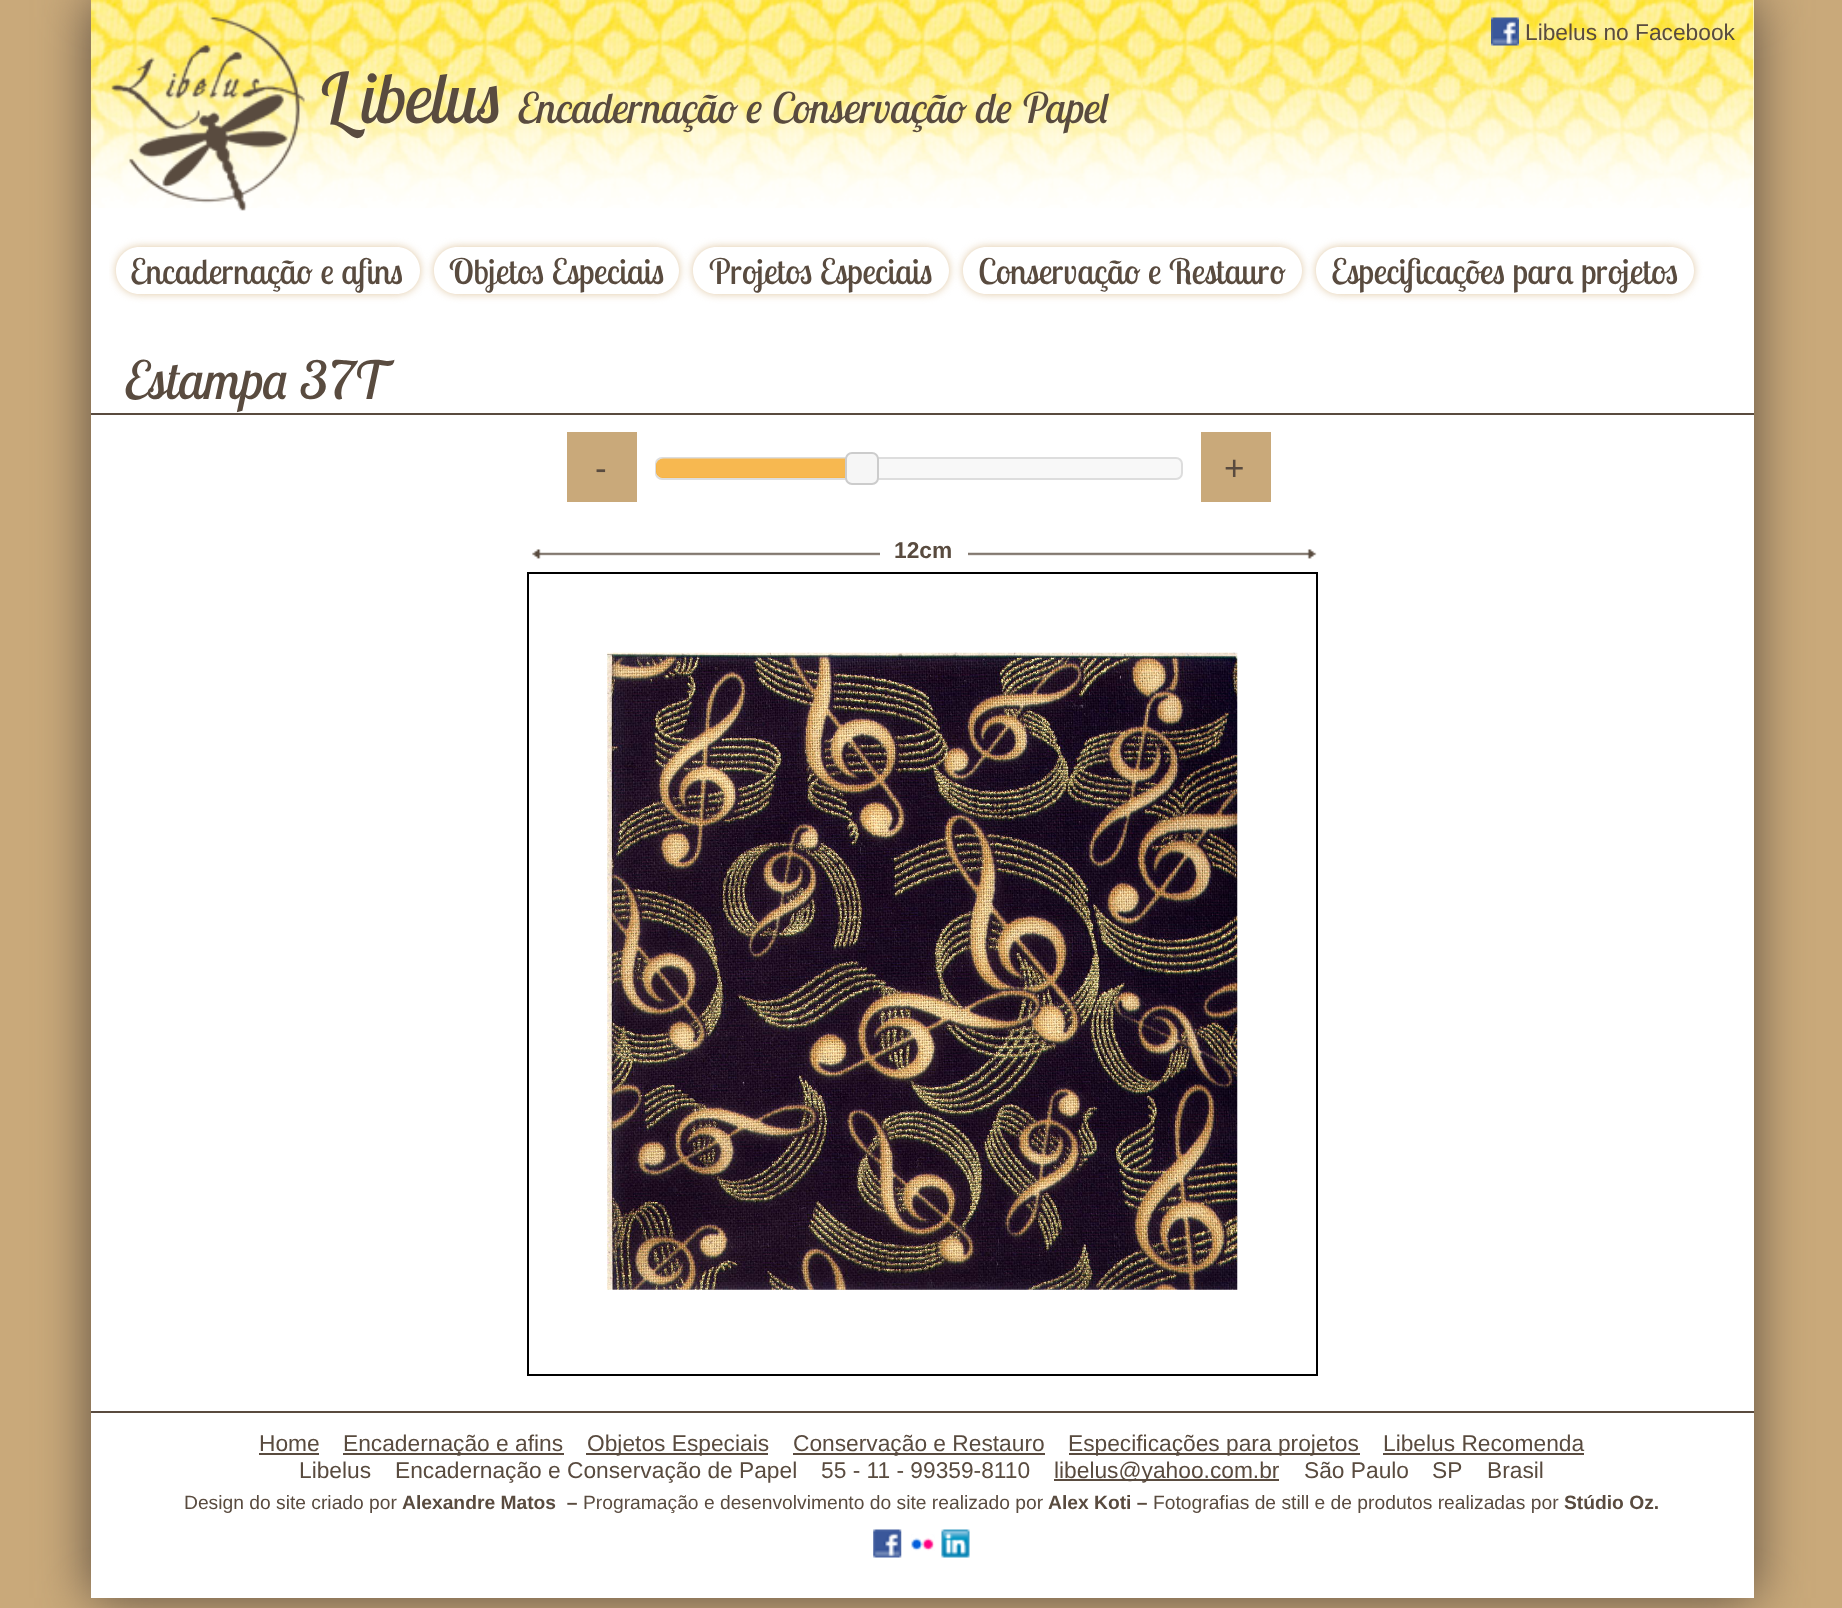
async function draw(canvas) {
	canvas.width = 1842;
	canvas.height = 1608;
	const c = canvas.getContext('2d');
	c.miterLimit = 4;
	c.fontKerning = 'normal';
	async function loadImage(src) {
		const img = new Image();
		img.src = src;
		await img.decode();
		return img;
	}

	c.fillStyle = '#c9a97a';
	c.fillRect(0, 0, 1842, 1608);
	c.fillStyle = '#594b3f';
	c.filter = 'blur(26px)';
	c.beginPath();
	c.rect(91, 0, 1663, 1598);
	c.fill();
	c.filter = 'none';
	c.fillStyle = '#fff';
	c.fillRect(91, 0, 1663, 1598);
	c.drawImage(await loadImage('img1.png'), 91, 0, 1663, 208);
	c.drawImage(await loadImage('img2.png'), 111, 17, 194, 194);
	c.drawImage(await loadImage('img3.png'), 1491, 17, 28, 29);
	c.font = '22.75px Liberation Sans';
	c.fillStyle = '#594b3f';
	c.fillText('Libelus no Facebook', 1525, 40);
	c.font = 'italic 70px Lobster Two';
	c.fillText('L', 318, 123);
	c.fillText('ibelus', 361, 123);
	c.font = 'italic 42px Lobster Two';
	c.fillText('Encadernação e Conservação de Papel', 518, 123);
	c.save();
	c.beginPath();
	c.rect(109, 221, 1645, 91);
	c.clip();
	c.beginPath();
	c.moveTo(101, 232);
	c.lineTo(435, 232);
	c.lineTo(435, 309);
	c.lineTo(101, 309);
	c.closePath();
	c.moveTo(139.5, 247);
	c.lineTo(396.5, 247);
	c.bezierCurveTo(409.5, 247, 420, 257.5, 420, 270.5);
	c.bezierCurveTo(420, 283.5, 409.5, 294, 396.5, 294);
	c.lineTo(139.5, 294);
	c.bezierCurveTo(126.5, 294, 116, 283.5, 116, 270.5);
	c.bezierCurveTo(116, 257.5, 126.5, 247, 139.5, 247);
	c.closePath();
	c.clip('evenodd');
	c.fillStyle = '#dfc6a1';
	c.filter = 'blur(4.5px)';
	c.beginPath();
	c.roundRect(116, 247, 304, 47, 23.5);
	c.fill();
	c.filter = 'none';
	c.restore();
	c.font = '35px Lobster Two';
	c.fillText('Encadernação e afins', 130, 284);
	c.save();
	c.beginPath();
	c.moveTo(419, 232);
	c.lineTo(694, 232);
	c.lineTo(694, 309);
	c.lineTo(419, 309);
	c.closePath();
	c.moveTo(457.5, 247);
	c.lineTo(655.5, 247);
	c.bezierCurveTo(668.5, 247, 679, 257.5, 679, 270.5);
	c.bezierCurveTo(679, 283.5, 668.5, 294, 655.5, 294);
	c.lineTo(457.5, 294);
	c.bezierCurveTo(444.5, 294, 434, 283.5, 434, 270.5);
	c.bezierCurveTo(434, 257.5, 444.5, 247, 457.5, 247);
	c.closePath();
	c.clip('evenodd');
	c.fillStyle = '#dfc6a1';
	c.filter = 'blur(4.5px)';
	c.beginPath();
	c.roundRect(434, 247, 245, 47, 23.5);
	c.fill();
	c.filter = 'none';
	c.restore();
	c.fillText('Objetos Especiais', 449, 284);
	c.save();
	c.beginPath();
	c.moveTo(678, 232);
	c.lineTo(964, 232);
	c.lineTo(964, 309);
	c.lineTo(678, 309);
	c.closePath();
	c.moveTo(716.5, 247);
	c.lineTo(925.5, 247);
	c.bezierCurveTo(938.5, 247, 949, 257.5, 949, 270.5);
	c.bezierCurveTo(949, 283.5, 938.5, 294, 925.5, 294);
	c.lineTo(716.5, 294);
	c.bezierCurveTo(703.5, 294, 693, 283.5, 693, 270.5);
	c.bezierCurveTo(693, 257.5, 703.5, 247, 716.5, 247);
	c.closePath();
	c.clip('evenodd');
	c.fillStyle = '#dfc6a1';
	c.filter = 'blur(4.5px)';
	c.beginPath();
	c.roundRect(693, 247, 256, 47, 23.5);
	c.fill();
	c.filter = 'none';
	c.restore();
	c.fillText('Projetos Especiais', 709, 284);
	c.save();
	c.beginPath();
	c.moveTo(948, 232);
	c.lineTo(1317, 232);
	c.lineTo(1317, 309);
	c.lineTo(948, 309);
	c.closePath();
	c.moveTo(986.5, 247);
	c.lineTo(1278.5, 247);
	c.bezierCurveTo(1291.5, 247, 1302, 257.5, 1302, 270.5);
	c.bezierCurveTo(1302, 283.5, 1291.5, 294, 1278.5, 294);
	c.lineTo(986.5, 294);
	c.bezierCurveTo(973.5, 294, 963, 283.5, 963, 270.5);
	c.bezierCurveTo(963, 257.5, 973.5, 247, 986.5, 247);
	c.closePath();
	c.clip('evenodd');
	c.fillStyle = '#dfc6a1';
	c.filter = 'blur(4.5px)';
	c.beginPath();
	c.roundRect(963, 247, 339, 47, 23.5);
	c.fill();
	c.filter = 'none';
	c.restore();
	c.fillText('Conservação e Restauro', 978, 284);
	c.save();
	c.beginPath();
	c.moveTo(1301, 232);
	c.lineTo(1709, 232);
	c.lineTo(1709, 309);
	c.lineTo(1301, 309);
	c.closePath();
	c.moveTo(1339.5, 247);
	c.lineTo(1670.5, 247);
	c.bezierCurveTo(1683.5, 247, 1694, 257.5, 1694, 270.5);
	c.bezierCurveTo(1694, 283.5, 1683.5, 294, 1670.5, 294);
	c.lineTo(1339.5, 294);
	c.bezierCurveTo(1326.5, 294, 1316, 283.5, 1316, 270.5);
	c.bezierCurveTo(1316, 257.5, 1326.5, 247, 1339.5, 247);
	c.closePath();
	c.clip('evenodd');
	c.fillStyle = '#dfc6a1';
	c.filter = 'blur(4.5px)';
	c.beginPath();
	c.roundRect(1316, 247, 378, 47, 23.5);
	c.fill();
	c.filter = 'none';
	c.restore();
	c.fillText('Especificações para projetos', 1331, 284);
	c.fillRect(91, 413, 1663, 2);
	c.font = 'italic 52.5px Lobster Two';
	c.fillText('Estampa 37T', 125, 399);
	c.fillStyle = '#c9a97a';
	c.fillRect(567, 432, 70, 70);
	c.font = '35px Liberation Sans';
	c.fillStyle = '#594b3f';
	c.fillText('-', 595, 480);
	c.drawImage(await loadImage('img4.png'), 655, 458, 528, 21);
	c.beginPath();
	c.roundRect(656, 458, 526, 21, 6);
	c.strokeStyle = '#ddd';
	c.lineWidth = 2;
	c.stroke();
	c.fillStyle = '#f6a828';
	c.beginPath();
	c.roundRect(656, 459, 203, 19, 7);
	c.fill();
	c.drawImage(await loadImage('img5.png'), 656, 458, 190, 20);
	c.fillStyle = '#f6f6f6';
	c.beginPath();
	c.roundRect(846, 453, 32, 31, 6);
	c.fill();
	c.strokeStyle = '#ccc';
	c.stroke();
	c.fillStyle = '#c9a97a';
	c.fillRect(1201, 432, 70, 70);
	c.fillStyle = '#594b3f';
	c.fillText('+', 1224, 480);
	c.strokeStyle = '#000';
	c.strokeRect(528, 573, 789, 802);
	c.drawImage(await loadImage('img6.png'), 532, 549, 785, 10);
	c.fillStyle = '#fff';
	c.fillRect(880, 552, 88, 4);
	c.font = 'bold 22.75px Liberation Sans';
	c.fillStyle = '#594b3f';
	c.fillText('12cm', 894, 558);
	c.drawImage(await loadImage('img7.png'), 607, 652, 631, 638);
	c.fillRect(91, 1411, 1663, 2);
	c.font = '22.75px Liberation Sans';
	c.fillText('Home', 259, 1451);
	c.fillRect(259, 1453, 60, 2);
	c.fillRect(343, 1453, 221, 2);
	c.fillText('Encadernação e afins', 343, 1451);
	c.fillRect(586, 1453, 182, 2);
	c.fillText('Objetos Especiais', 587, 1451);
	c.fillRect(793, 1453, 252, 2);
	c.fillText('Conservação e Restauro', 793, 1451);
	c.fillRect(1069, 1453, 291, 2);
	c.fillText('Especificações para projetos', 1068, 1451);
	c.fillText('Libelus Recomenda', 1383, 1451);
	c.fillRect(1383, 1453, 201, 2);
	for (const [text, x, y] of [
		['Libelus', 299, 1478],
		['Encadernação e Conservação de Papel', 395, 1478],
		['55 - 11 - 99359-8110', 821, 1478],
	]) {
		c.fillText(text, x, y);
	}
	c.fillRect(1054, 1479, 225, 2);
	for (const [text, x, y] of [
		['libelus@yahoo.com.br', 1054, 1478],
		['São Paulo', 1304, 1478],
		['SP', 1432, 1478],
		['Brasil', 1487, 1478],
	]) {
		c.fillText(text, x, y);
	}
	c.font = '19.25px Liberation Sans';
	c.fillText('Design do site criado por', 184, 1509);
	c.font = 'bold 19.25px Liberation Sans';
	c.fillText('Alexandre Matos  –', 402, 1509);
	c.font = '19.25px Liberation Sans';
	c.fillText('Programação e desenvolvimento do site realizado por', 583, 1509);
	c.font = 'bold 19.25px Liberation Sans';
	c.fillText('Alex Koti –', 1048, 1509);
	c.font = '19.25px Liberation Sans';
	c.fillText('Fotografias de still e de produtos realizadas por', 1153, 1509);
	c.font = 'bold 19.25px Liberation Sans';
	c.fillText('Stúdio Oz.', 1564, 1509);
	c.drawImage(await loadImage('img8.png'), 873, 1529, 29, 29);
	c.drawImage(await loadImage('img9.png'), 911, 1534, 24, 17);
	c.drawImage(await loadImage('img10.png'), 941, 1529, 29, 29);
}

draw(document.querySelector('canvas'));
